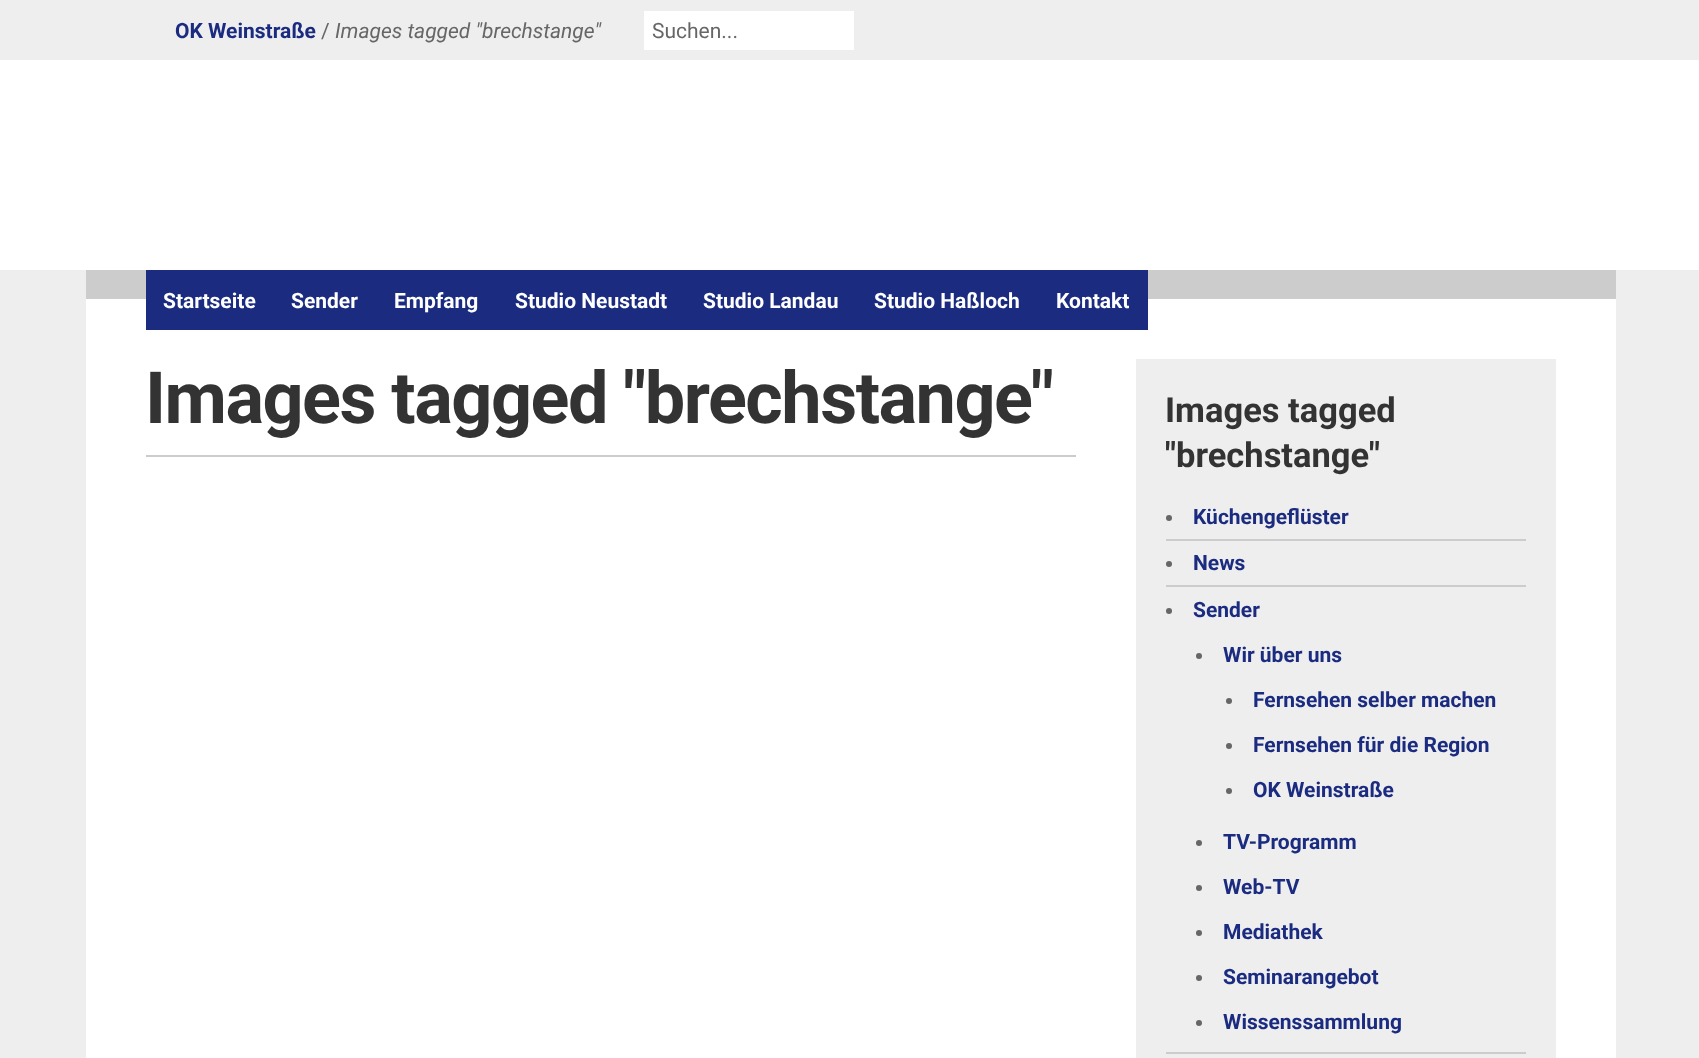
async function draw(canvas) {
	canvas.width = 1699;
	canvas.height = 1058;
	const c = canvas.getContext('2d');
	c.miterLimit = 4;
	c.fontKerning = 'normal';

	c.fillStyle = '#eee';
	c.fillRect(0, 0, 1699, 1058);
	c.font = 'bold 21px Roboto';
	c.fillStyle = '#1a2b80';
	c.fillText('OK Weinstraße', 175, 38);
	c.font = '21px Roboto';
	c.fillStyle = '#666';
	c.fillText('/', 321, 38);
	c.font = 'italic 21px Roboto';
	c.fillText('Images tagged "brechstange"', 335, 38);
	c.fillStyle = '#fff';
	c.fillRect(644, 11, 210, 39);
	c.font = '21px Roboto';
	c.fillStyle = '#666';
	c.fillText('Suchen...', 652, 38);
	for (const [x, y, w, h, color] of [
		[0, 60, 1699, 210, '#fff'],
		[86, 299, 1530, 759, '#fff'],
		[86, 270, 1530, 29, '#ccc'],
		[146, 270, 1002, 60, '#1a2b80'],
	]) {
		c.fillStyle = color;
		c.fillRect(x, y, w, h);
	}
	c.font = 'bold 21px Roboto';
	c.fillStyle = '#fff';
	for (const [text, x, y] of [
		['Startseite', 163, 308],
		['Sender', 291, 308],
		['Empfang', 394, 308],
		['Studio Neustadt', 515, 308],
		['Studio Landau', 703, 308],
		['Studio Haßloch', 874, 308],
		['Kontakt', 1056, 308],
	]) {
		c.fillText(text, x, y);
	}
	c.fillStyle = '#ccc';
	c.fillRect(146, 455, 930, 2);
	c.letterSpacing = '-1.5px';
	c.font = 'bold 72px Roboto';
	c.fillStyle = '#333';
	c.fillText('Images tagged "brechstange"', 145, 423);
	c.fillStyle = '#eee';
	c.fillRect(1136, 359, 420, 699);
	c.letterSpacing = '0px';
	c.font = 'bold 34.5px Roboto';
	c.fillStyle = '#333';
	c.fillText('Images tagged', 1165, 422);
	c.fillText('"brechstange"', 1165, 467);
	c.fillStyle = '#ccc';
	c.fillRect(1166, 539, 360, 2);
	c.fillStyle = '#666';
	c.beginPath();
	c.arc(1169, 518, 3, 0, 2 * Math.PI);
	c.fill();
	c.font = 'bold 21px Roboto';
	c.fillStyle = '#1a2b80';
	c.fillText('Küchengeflüster', 1193, 524);
	c.fillStyle = '#ccc';
	c.fillRect(1166, 585, 360, 2);
	c.fillStyle = '#666';
	c.beginPath();
	c.arc(1169, 564, 3, 0, 2 * Math.PI);
	c.fill();
	c.fillStyle = '#1a2b80';
	c.fillText('News', 1193, 570);
	c.fillStyle = '#ccc';
	c.fillRect(1166, 1052, 360, 2);
	c.fillStyle = '#666';
	c.beginPath();
	c.arc(1169, 611, 3, 0, 2 * Math.PI);
	c.fill();
	c.fillStyle = '#1a2b80';
	c.fillText('Sender', 1193, 617);
	c.fillStyle = '#666';
	c.beginPath();
	c.arc(1199, 656, 3, 0, 2 * Math.PI);
	c.fill();
	c.fillStyle = '#1a2b80';
	c.fillText('Wir über uns', 1223, 662);
	c.fillStyle = '#666';
	c.beginPath();
	c.arc(1229, 701, 3, 0, 2 * Math.PI);
	c.fill();
	c.fillStyle = '#1a2b80';
	c.fillText('Fernsehen selber machen', 1253, 707);
	c.fillStyle = '#666';
	c.beginPath();
	c.arc(1229, 746, 3, 0, 2 * Math.PI);
	c.fill();
	c.fillStyle = '#1a2b80';
	c.fillText('Fernsehen für die Region', 1253, 752);
	c.fillStyle = '#666';
	c.beginPath();
	c.arc(1229, 791, 3, 0, 2 * Math.PI);
	c.fill();
	c.fillStyle = '#1a2b80';
	c.fillText('OK Weinstraße', 1253, 797);
	c.fillStyle = '#666';
	c.beginPath();
	c.arc(1199, 843, 3, 0, 2 * Math.PI);
	c.fill();
	c.fillStyle = '#1a2b80';
	c.fillText('TV-Programm', 1223, 849);
	c.fillStyle = '#666';
	c.beginPath();
	c.arc(1199, 888, 3, 0, 2 * Math.PI);
	c.fill();
	c.fillStyle = '#1a2b80';
	c.fillText('Web-TV', 1223, 894);
	c.fillStyle = '#666';
	c.beginPath();
	c.arc(1199, 933, 3, 0, 2 * Math.PI);
	c.fill();
	c.fillStyle = '#1a2b80';
	c.fillText('Mediathek', 1223, 939);
	c.fillStyle = '#666';
	c.beginPath();
	c.arc(1199, 978, 3, 0, 2 * Math.PI);
	c.fill();
	c.fillStyle = '#1a2b80';
	c.fillText('Seminarangebot', 1223, 984);
	c.fillStyle = '#666';
	c.beginPath();
	c.arc(1199, 1023, 3, 0, 2 * Math.PI);
	c.fill();
	c.fillStyle = '#1a2b80';
	c.fillText('Wissenssammlung', 1223, 1029);
}

draw(document.querySelector('canvas'));
